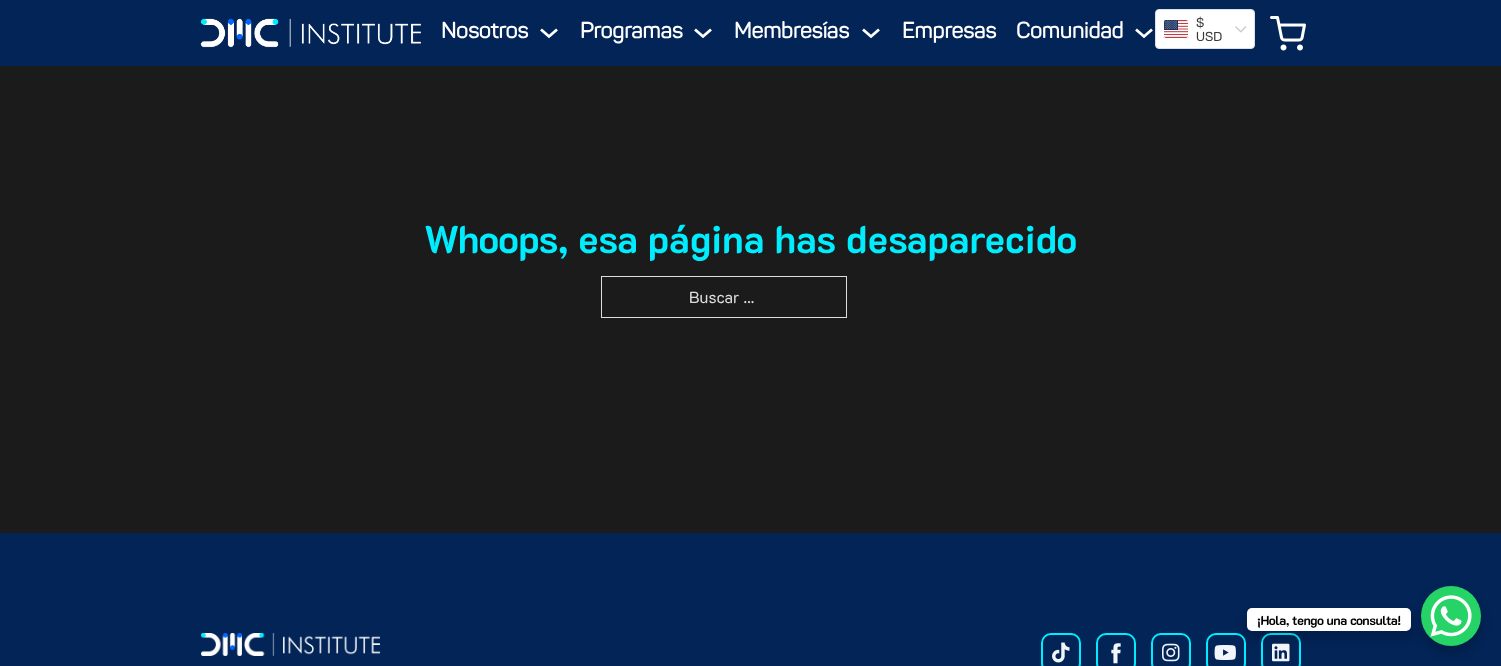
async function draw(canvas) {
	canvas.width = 1501;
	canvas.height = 666;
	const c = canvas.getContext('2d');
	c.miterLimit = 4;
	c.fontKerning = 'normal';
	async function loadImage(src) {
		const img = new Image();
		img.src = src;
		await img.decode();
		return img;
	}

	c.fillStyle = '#1b1b1b';
	c.fillRect(0, 0, 1501, 666);
	c.fillStyle = '#032457';
	c.fillRect(0, 0, 1501, 66);
	c.drawImage(await loadImage('img1.png'), 200, 18, 221, 30);
	c.font = 'bold 22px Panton';
	c.fillStyle = '#fff';
	c.fillText('Nosotros', 441, 38);
	c.beginPath();
	c.moveTo(541, 29.5);
	c.lineTo(549, 36.5);
	c.lineTo(557, 29.5);
	c.strokeStyle = '#fff';
	c.lineWidth = 2.8;
	c.stroke();
	c.fillText('Programas', 580, 38);
	c.beginPath();
	c.moveTo(695, 29.5);
	c.lineTo(703, 36.5);
	c.lineTo(711, 29.5);
	c.stroke();
	c.fillText('Membresías', 734, 38);
	c.beginPath();
	c.moveTo(863, 29.5);
	c.lineTo(871, 36.5);
	c.lineTo(879, 29.5);
	c.stroke();
	c.fillText('Empresas', 902, 38);
	c.fillText('Comunidad', 1016, 38);
	c.beginPath();
	c.moveTo(1136, 29.5);
	c.lineTo(1144, 36.5);
	c.lineTo(1152, 29.5);
	c.stroke();
	c.beginPath();
	c.roundRect(1155.5, 9.5, 99, 39, 3.5);
	c.fill();
	c.strokeStyle = '#dcdfe6';
	c.lineWidth = 1;
	c.stroke();
	c.drawImage(await loadImage('img2.png'), 1164, 20, 24, 18);
	c.font = '13px "K2D"';
	c.fillStyle = '#3b3b3b';
	c.fillText('$', 1196, 27);
	c.fillText('USD', 1196, 41);
	c.fillStyle = '#ccc';
	c.beginPath();
	c.moveTo(1235, 27);
	c.lineTo(1236, 26);
	c.lineTo(1241.5, 31.5);
	c.lineTo(1240.5, 32.5);
	c.closePath();
	c.fill();
	c.beginPath();
	c.moveTo(1245.5, 26);
	c.lineTo(1246.5, 27);
	c.lineTo(1241, 32.5);
	c.lineTo(1240, 31.5);
	c.closePath();
	c.fill();
	c.drawImage(await loadImage('img3.png'), 1270, 16, 36, 35);
	c.font = 'bold 38.4px "K2D"';
	c.fillStyle = '#00edff';
	c.fillText('Whoops, esa página has desaparecido', 424, 253);
	c.strokeStyle = '#dddedf';
	c.strokeRect(601.5, 276.5, 245, 41);
	c.font = '16px "K2D"';
	c.fillStyle = '#dddedf';
	c.fillText('Buscar ...', 689, 303);
	c.fillStyle = '#032457';
	c.fillRect(0, 533, 1501, 133);
	c.drawImage(await loadImage('img4.png'), 201, 633, 179, 23);
	c.beginPath();
	c.roundRect(1042, 634, 38, 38, 9);
	c.strokeStyle = '#00edff';
	c.lineWidth = 2;
	c.stroke();
	c.drawImage(await loadImage('img5.png'), 1052, 642, 18, 21);
	c.beginPath();
	c.roundRect(1097, 634, 38, 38, 9);
	c.stroke();
	c.drawImage(await loadImage('img6.png'), 1111, 643, 10, 21);
	c.beginPath();
	c.roundRect(1152, 634, 38, 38, 9);
	c.stroke();
	c.drawImage(await loadImage('img7.png'), 1162, 643, 18, 19);
	c.beginPath();
	c.roundRect(1207, 634, 38, 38, 9);
	c.stroke();
	c.drawImage(await loadImage('img8.png'), 1214, 645, 22, 15);
	c.beginPath();
	c.roundRect(1262, 634, 38, 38, 9);
	c.stroke();
	c.drawImage(await loadImage('img9.png'), 1272, 643, 18, 19);
	c.fillStyle = '#00000026';
	c.filter = 'blur(4px)';
	c.beginPath();
	c.roundRect(1419, 590, 64, 64, 32);
	c.fill();
	c.filter = 'none';
	c.fillStyle = '#25d366';
	c.beginPath();
	c.arc(1451, 616, 30, 0, 2 * Math.PI);
	c.fill();
	c.fillStyle = '#00000026';
	c.filter = 'blur(4px)';
	c.beginPath();
	c.roundRect(1245, 612, 168, 27, 7);
	c.fill();
	c.filter = 'none';
	c.fillStyle = '#fff';
	c.beginPath();
	c.roundRect(1247, 608, 164, 23, 5);
	c.fill();
	c.letterSpacing = '-0.4px';
	c.font = 'bold 13px "K2D"';
	c.fillStyle = '#000';
	c.fillText('¡Hola, tengo una consulta!', 1257, 625);
	c.drawImage(await loadImage('img10.png'), 1430, 595, 42, 42);
}

draw(document.querySelector('canvas'));
